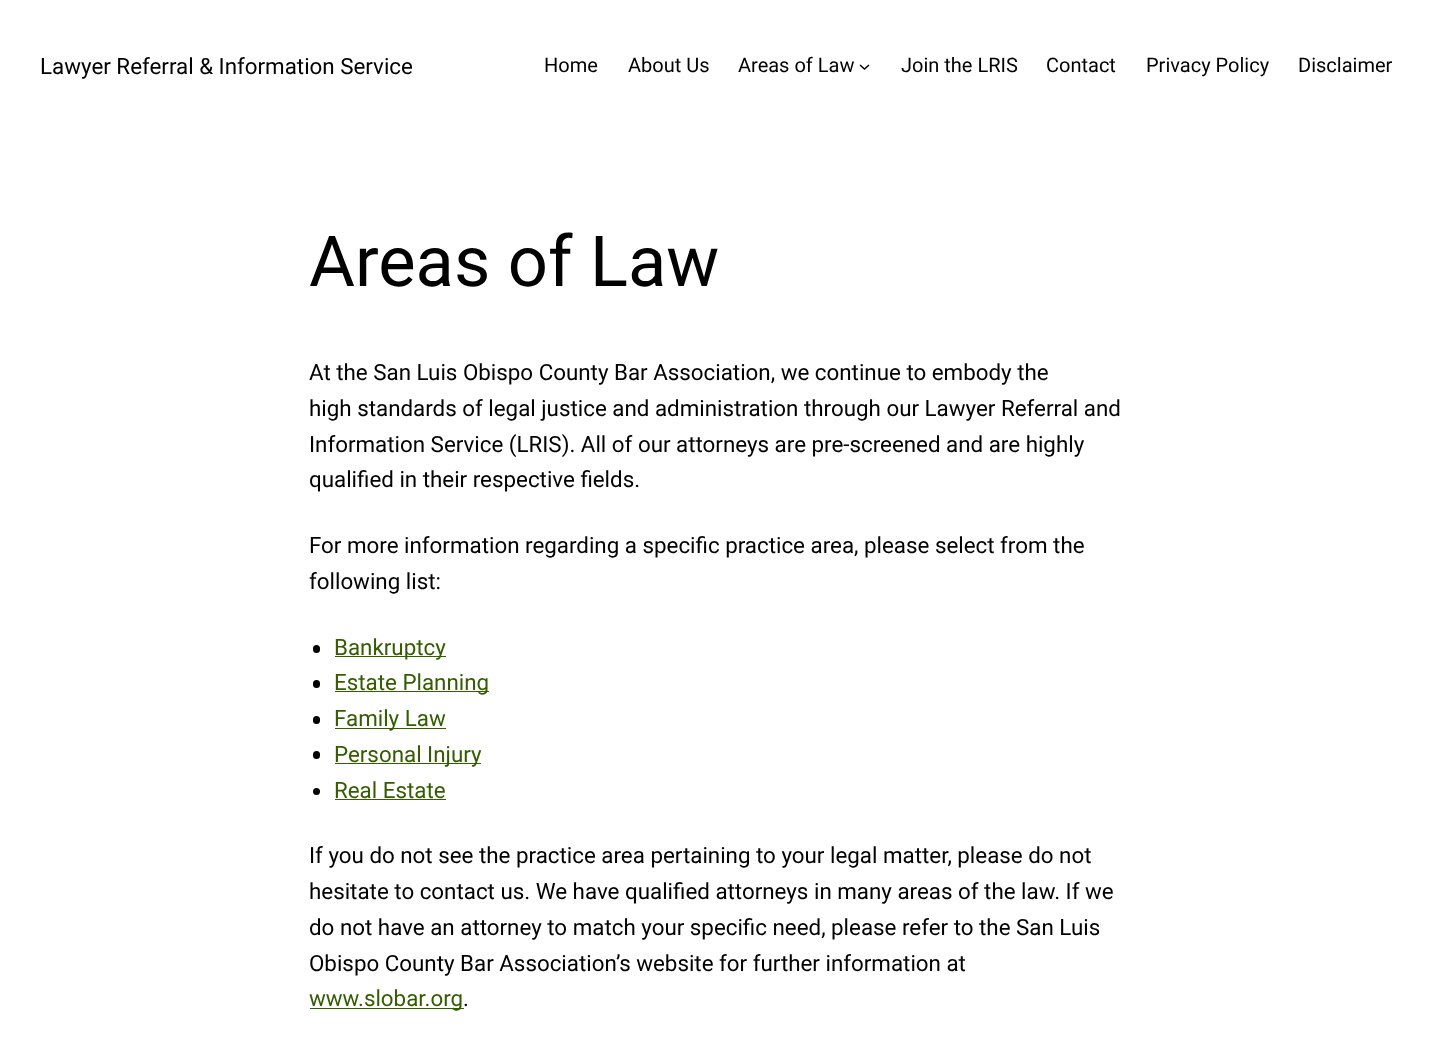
async function draw(canvas) {
	canvas.width = 1431;
	canvas.height = 1061;
	const c = canvas.getContext('2d');
	c.miterLimit = 4;
	c.fontKerning = 'normal';

	c.fillStyle = '#fff';
	c.fillRect(0, 0, 1431, 1061);
	c.font = '22.35px Roboto';
	c.fillStyle = '#000';
	c.fillText('Lawyer Referral & Information Service', 40, 74);
	c.font = '20px Roboto';
	for (const [text, x, y] of [
		['Home', 544, 72],
		['About Us', 628, 72],
		['Areas of Law', 738, 72],
	]) {
		c.fillText(text, x, y);
	}
	c.beginPath();
	c.moveTo(860, 65);
	c.lineTo(864.5, 69);
	c.lineTo(869, 65);
	c.strokeStyle = '#000';
	c.lineWidth = 1.5;
	c.stroke();
	for (const [text, x, y] of [
		['Join the LRIS', 901, 72],
		['Contact', 1046, 72],
		['Privacy Policy', 1146, 72],
		['Disclaimer', 1298, 72],
	]) {
		c.fillText(text, x, y);
	}
	c.font = '70.5px Roboto';
	c.fillText('Areas of Law', 309, 286);
	c.font = '22.35px Roboto';
	for (const [text, x, y] of [
		['At the San Luis Obispo County Bar Association, we continue to embody the', 309, 380],
		['high standards of legal justice and administration through our Lawyer Referral and', 309, 416],
		['Information Service (LRIS). All of our attorneys are pre-screened and are highly', 309, 452],
		['qualified in their respective fields.', 309, 487],
		['For more information regarding a specific practice area, please select from the', 309, 553],
		['following list:', 309, 589],
	]) {
		c.fillText(text, x, y);
	}
	c.beginPath();
	c.roundRect(313, 645, 7, 8, 3.5);
	c.fill();
	c.fillStyle = '#345c00';
	c.fillRect(335, 656, 111, 1);
	c.fillText('Bankruptcy', 334, 655);
	c.fillStyle = '#000';
	c.beginPath();
	c.roundRect(313, 680, 7, 8, 3.5);
	c.fill();
	c.fillStyle = '#345c00';
	c.fillRect(335, 691, 154, 1);
	c.fillText('Estate Planning', 334, 690);
	c.fillStyle = '#000';
	c.beginPath();
	c.roundRect(313, 716, 7, 8, 3.5);
	c.fill();
	c.fillStyle = '#345c00';
	c.fillRect(335, 728, 111, 1);
	c.fillText('Family Law', 334, 726);
	c.fillStyle = '#000';
	c.beginPath();
	c.roundRect(313, 751, 7, 8, 3.5);
	c.fill();
	c.fillStyle = '#345c00';
	c.fillRect(335, 763, 146, 1);
	c.fillText('Personal Injury', 334, 762);
	c.fillStyle = '#000';
	c.beginPath();
	c.arc(316.5, 791.5, 3.5, 0, 2 * Math.PI);
	c.fill();
	c.fillStyle = '#345c00';
	c.fillText('Real Estate', 334, 798);
	c.fillRect(335, 799, 111, 1);
	c.fillStyle = '#000';
	for (const [text, x, y] of [
		['If you do not see the practice area pertaining to your legal matter, please do not', 309, 863],
		['hesitate to contact us. We have qualified attorneys in many areas of the law. If we', 309, 899],
		['do not have an attorney to match your specific need, please refer to the San Luis', 309, 935],
		['Obispo County Bar Association’s website for further information at', 309, 971],
	]) {
		c.fillText(text, x, y);
	}
	c.fillStyle = '#345c00';
	c.fillRect(310, 1008, 154, 1);
	c.fillText('www.slobar.org', 309, 1006);
	c.fillStyle = '#000';
	c.fillText('.', 463, 1006);
}

draw(document.querySelector('canvas'));
